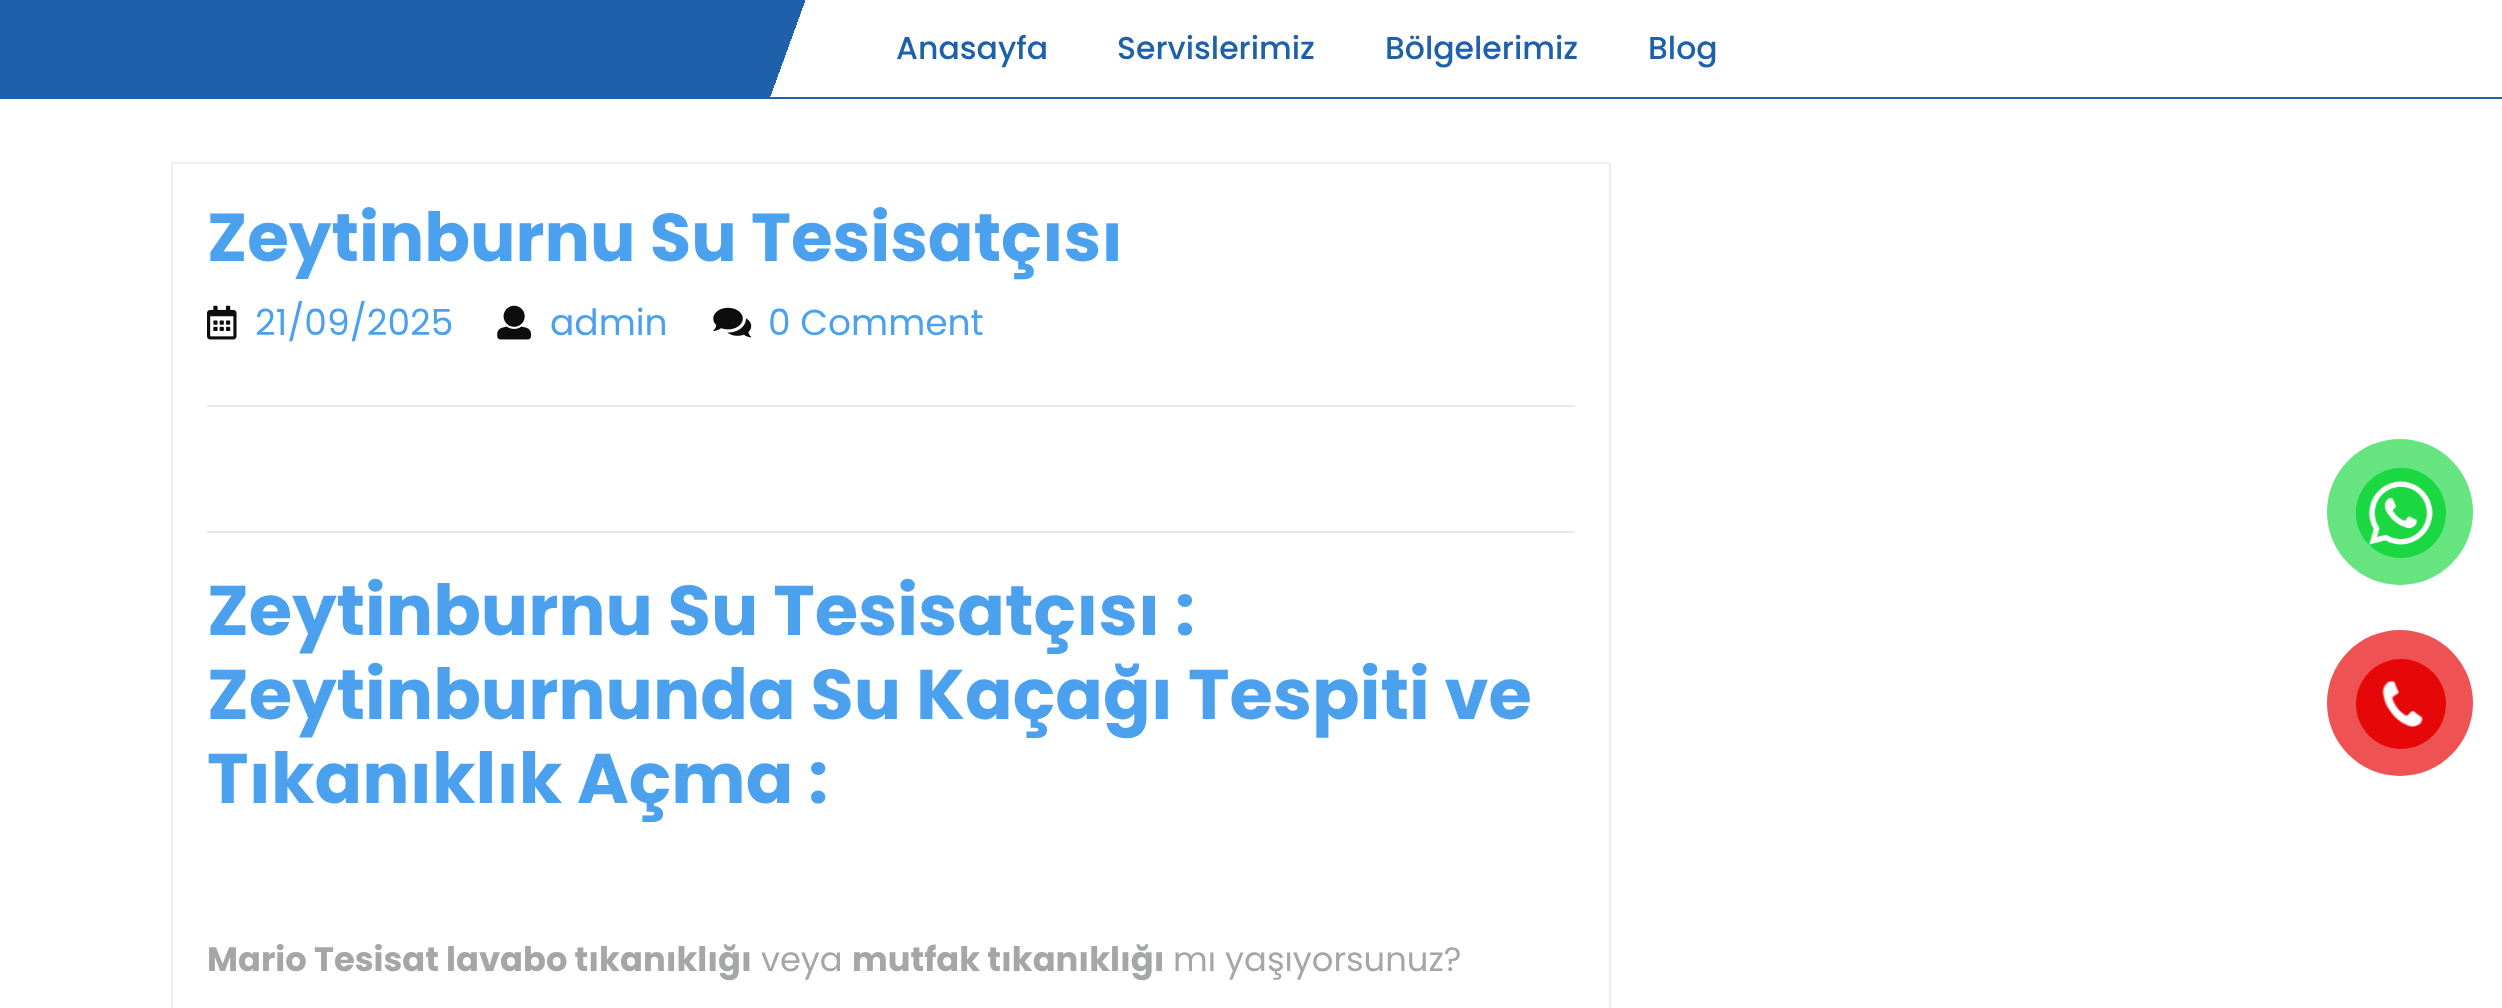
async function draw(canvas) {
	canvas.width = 2502;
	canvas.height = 1008;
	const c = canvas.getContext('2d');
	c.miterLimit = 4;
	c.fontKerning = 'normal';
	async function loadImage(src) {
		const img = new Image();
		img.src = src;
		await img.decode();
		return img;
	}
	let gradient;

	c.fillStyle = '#fff';
	c.fillRect(0, 0, 2502, 1008);
	c.fillStyle = '#1e60aa';
	c.fillRect(0, 0, 2502, 99);
	gradient = c.createLinearGradient(821, -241, 2414, 338);
	gradient.addColorStop(0.04, '#1e60aa');
	gradient.addColorStop(0.04, '#fff');
	c.fillStyle = gradient;
	c.fillRect(770, 0, 1732, 97);
	c.font = '500 31.5px Poppins';
	c.fillStyle = '#1e60aa';
	for (const [text, x, y] of [
		['Anasayfa', 896, 59],
		['Servislerimiz', 1117, 59],
		['Bölgelerimiz', 1385, 59],
		['Blog', 1648, 59],
	]) {
		c.fillText(text, x, y);
	}
	c.strokeStyle = '#eee';
	c.lineWidth = 2;
	c.strokeRect(172, 163, 1438, 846);
	c.font = 'bold 67.5px Poppins';
	c.fillStyle = '#4ba1ed';
	c.fillText('Zeytinburnu Su Tesisatçısı', 207, 261);
	c.drawImage(await loadImage('img1.png'), 207, 305, 30, 35);
	c.font = '36px Poppins';
	c.fillText('21/09/2025', 255, 335);
	c.drawImage(await loadImage('img2.png'), 497, 305, 34, 35);
	c.fillText('admin', 550, 335);
	c.drawImage(await loadImage('img3.png'), 713, 307, 39, 31);
	c.fillText('0 Comment', 768, 335);
	c.fillStyle = '#e8e9e9';
	c.fillRect(207, 405, 1368, 2);
	c.fillRect(207, 531, 1368, 2);
	c.font = 'bold 70.25px Poppins';
	c.fillStyle = '#4ba1ed';
	for (const [text, x, y] of [
		['Zeytinburnu Su Tesisatçısı :', 207, 635],
		['Zeytinburnunda Su Kaçağı Tespiti ve', 207, 719],
		['Tıkanıklık Açma :', 207, 803],
	]) {
		c.fillText(text, x, y);
	}
	c.font = 'bold 33.75px Poppins';
	c.fillStyle = '#a4a6a8';
	c.fillText('Mario Tesisat lavabo tıkanıklığı', 207, 971);
	c.font = '33.75px Poppins';
	c.fillText('veya', 761, 971);
	c.font = 'bold 33.75px Poppins';
	c.fillText('mutfak tıkanıklığı', 852, 971);
	c.font = '33.75px Poppins';
	c.fillText('mı yaşıyorsunuz?', 1173, 971);
	c.fillStyle = '#65e47f';
	c.beginPath();
	c.arc(2400, 512, 73, 0, 2 * Math.PI);
	c.fill();
	c.fillStyle = '#1cd741';
	c.beginPath();
	c.arc(2401, 513, 45, 0, 2 * Math.PI);
	c.fill();
	c.drawImage(await loadImage('img4.png'), 2355, 468, 91, 90);
	c.fillStyle = '#ee5252';
	c.beginPath();
	c.arc(2400, 703, 73, 0, 2 * Math.PI);
	c.fill();
	c.fillStyle = '#e60808';
	c.beginPath();
	c.arc(2401, 704, 45, 0, 2 * Math.PI);
	c.fill();
	c.drawImage(await loadImage('img5.png'), 2382, 680, 41, 47);
}

draw(document.querySelector('canvas'));
